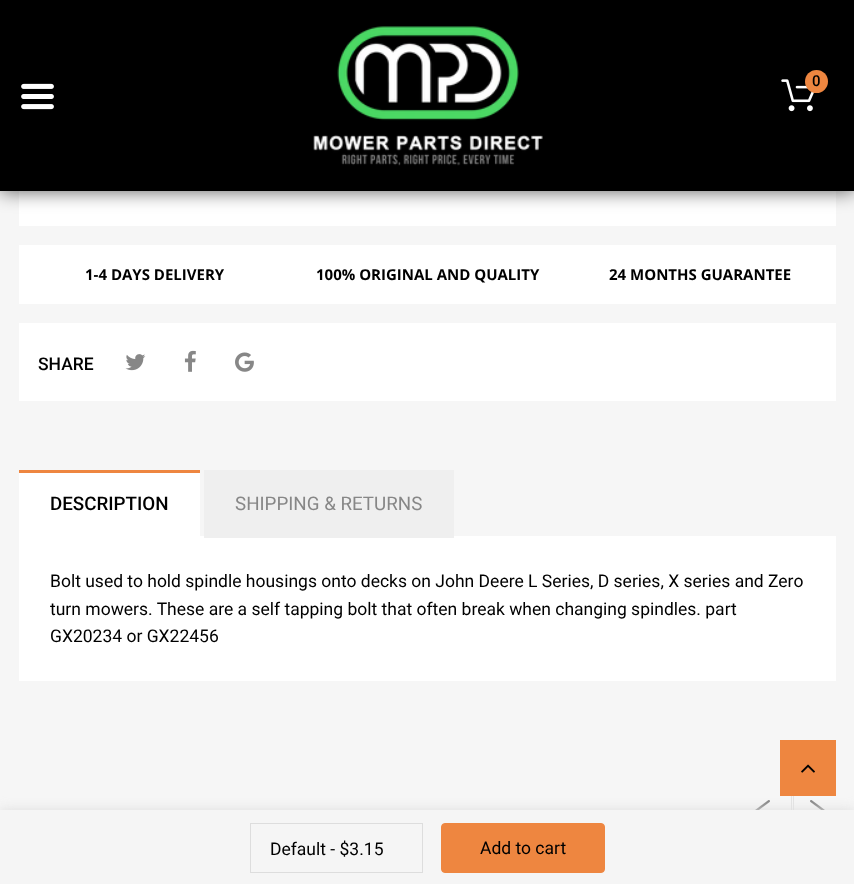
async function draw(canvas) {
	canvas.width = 854;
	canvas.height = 884;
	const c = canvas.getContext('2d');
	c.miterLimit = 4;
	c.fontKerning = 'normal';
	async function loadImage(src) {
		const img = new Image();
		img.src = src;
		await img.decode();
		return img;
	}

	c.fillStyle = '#f6f6f6';
	c.fillRect(0, 0, 854, 884);
	c.fillStyle = '#fff';
	c.fillRect(19, 191, 817, 35);
	c.fillStyle = '#000000a6';
	c.filter = 'blur(9.5px)';
	c.beginPath();
	c.rect(0, 0, 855, 191);
	c.fill();
	c.filter = 'none';
	c.fillStyle = '#000';
	c.fillRect(0, 0, 854, 191);
	c.drawImage(await loadImage('img1.png'), 313, 26, 230, 140);
	c.drawImage(await loadImage('img2.png'), 781, 79, 34, 33);
	c.fillStyle = '#ee8640';
	c.beginPath();
	c.arc(816.5, 81.5, 11.5, 0, 2 * Math.PI);
	c.fill();
	c.font = '500 15px Roboto';
	c.fillStyle = '#000';
	c.fillText('0', 812, 86);
	c.drawImage(await loadImage('img3.png'), 21, 83, 33, 27);
	c.fillStyle = '#fff';
	c.fillRect(19, 245, 817, 59);
	c.font = 'bold 15px Open Sans';
	c.fillStyle = '#000';
	for (const [text, x, y] of [
		['1-4 DAYS DELIVERY', 85, 280],
		['100% ORIGINAL AND QUALITY', 316, 280],
		['24 MONTHS GUARANTEE', 609, 280],
	]) {
		c.fillText(text, x, y);
	}
	c.fillStyle = '#fff';
	c.fillRect(19, 323, 817, 78);
	c.font = '500 17.5px Roboto';
	c.fillStyle = '#000';
	c.fillText('SHARE', 38, 370);
	c.drawImage(await loadImage('img4.png'), 125, 354, 21, 17);
	c.drawImage(await loadImage('img5.png'), 184, 350, 12, 22);
	c.drawImage(await loadImage('img6.png'), 235, 352, 19, 20);
	c.fillStyle = '#fff';
	c.fillRect(19, 473, 181, 63);
	c.fillStyle = '#ee8640';
	c.fillRect(19, 470, 181, 3);
	c.font = '500 18.75px Roboto';
	c.fillStyle = '#000';
	c.fillText('DESCRIPTION', 50, 510);
	c.fillStyle = '#fff';
	c.fillRect(19, 536, 817, 145);
	c.fillStyle = '#efefef';
	c.fillRect(204, 470, 250, 68);
	c.font = '18.75px Roboto';
	c.fillStyle = '#878787';
	c.fillText('SHIPPING & RETURNS', 235, 510);
	c.font = '17.5px Roboto';
	c.fillStyle = '#000';
	for (const [text, x, y] of [
		['Bolt used to hold spindle housings onto decks on John Deere L Series, D series, X series and Zero', 50, 587],
		['turn mowers. These are a self tapping bolt that often break when changing spindles. part', 50, 615],
		['GX20234 or GX22456', 50, 642],
	]) {
		c.fillText(text, x, y);
	}
	c.fillStyle = '#e4e4e4';
	c.fillRect(791, 794, 1, 16);
	c.drawImage(await loadImage('img7.png'), 755, 800, 15, 10);
	c.fillRect(793, 794, 1, 16);
	c.drawImage(await loadImage('img8.png'), 810, 800, 15, 10);
	c.fillStyle = '#ee8640';
	c.fillRect(780, 740, 56, 56);
	c.drawImage(await loadImage('img9.png'), 801, 764, 14, 9);
	c.fillStyle = '#ddd';
	c.filter = 'blur(6px)';
	c.beginPath();
	c.rect(0, 810, 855, 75);
	c.fill();
	c.filter = 'none';
	c.fillStyle = '#f5f5f5';
	c.fillRect(0, 810, 854, 74);
	c.strokeStyle = '#ddd';
	c.strokeRect(250.5, 823.5, 172, 49);
	c.fillStyle = '#000';
	c.fillText('Default - $3.15', 270, 855);
	c.fillStyle = '#ee8640';
	c.beginPath();
	c.roundRect(441.5, 823.5, 163, 49, 3.5);
	c.fill();
	c.strokeStyle = '#ee8640';
	c.stroke();
	c.fillStyle = '#000';
	c.fillText('Add to cart', 480, 854);
}

draw(document.querySelector('canvas'));
